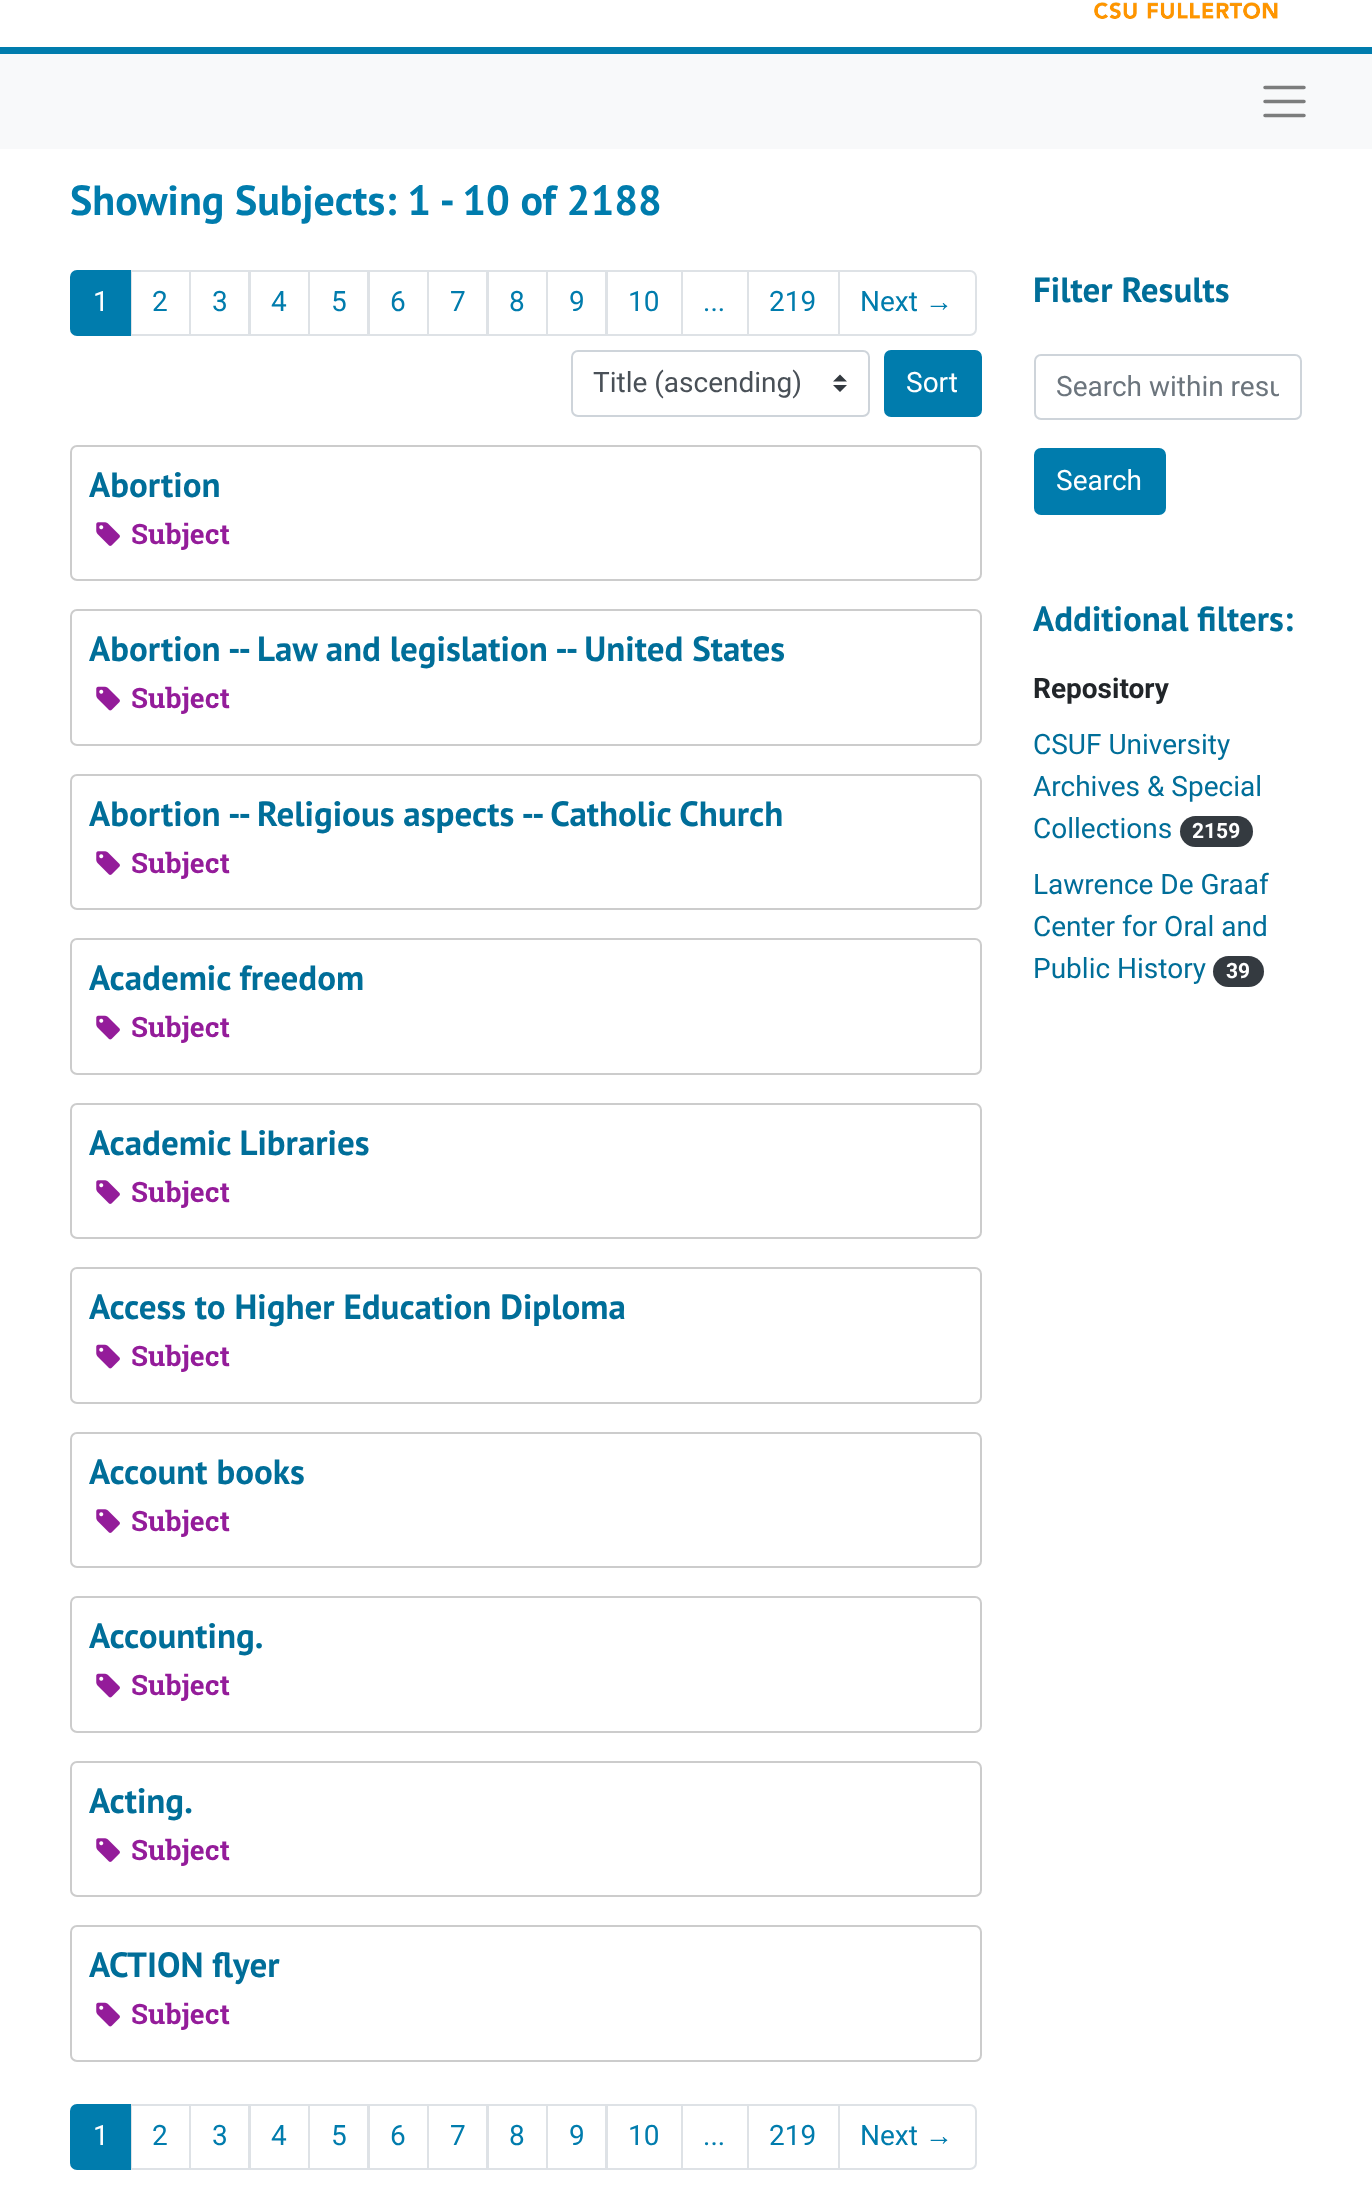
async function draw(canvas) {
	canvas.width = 1372;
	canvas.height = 2199;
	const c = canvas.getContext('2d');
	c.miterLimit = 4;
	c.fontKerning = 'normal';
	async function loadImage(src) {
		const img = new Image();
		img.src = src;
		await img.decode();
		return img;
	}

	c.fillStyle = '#fff';
	c.fillRect(0, 0, 1372, 2199);
	c.fillStyle = '#007cad';
	c.fillRect(0, 47, 1372, 7);
	c.drawImage(await loadImage('img1.png'), 1094, 2, 184, 17);
	c.fillStyle = '#f8f9fa';
	c.fillRect(0, 54, 1372, 95);
	c.beginPath();
	c.moveTo(1265, 87.5);
	c.lineTo(1304, 87.5);
	c.moveTo(1265, 101.5);
	c.lineTo(1304, 101.5);
	c.moveTo(1265, 115.5);
	c.lineTo(1304, 115.5);
	c.strokeStyle = '#7c7d7d';
	c.lineWidth = 3.5;
	c.lineCap = 'round';
	c.stroke();
	c.font = 'bold 42px PT Sans';
	c.fillStyle = '#007cad';
	c.fillText('Showing Subjects: 1 - 10 of 2188', 70, 215);
	c.strokeStyle = '#dee2e6';
	c.lineWidth = 2;
	c.strokeRect(131, 271, 59, 64);
	c.beginPath();
	c.roundRect(71, 271, 59, 64, [6, 0, 0, 6]);
	c.fill();
	c.strokeStyle = '#007cad';
	c.stroke();
	c.font = '28px Roboto';
	c.fillStyle = '#fff';
	c.fillText('1', 93, 311);
	c.fillStyle = '#007cad';
	c.fillText('2', 152, 311);
	c.strokeStyle = '#dee2e6';
	c.strokeRect(190, 271, 59, 64);
	c.fillText('3', 212, 311);
	c.strokeRect(250, 271, 59, 64);
	c.fillText('4', 271, 311);
	c.strokeRect(309, 271, 59, 64);
	c.fillText('5', 331, 311);
	c.strokeRect(369, 271, 59, 64);
	c.fillText('6', 390, 311);
	c.strokeRect(428, 271, 59, 64);
	c.fillText('7', 450, 311);
	c.strokeRect(488, 271, 59, 64);
	c.fillText('8', 509, 311);
	c.strokeRect(547, 271, 59, 64);
	c.fillText('9', 569, 311);
	c.strokeRect(607, 271, 75, 64);
	c.fillText('10', 628, 311);
	c.strokeRect(682, 271, 66, 64);
	c.fillText('...', 703, 311);
	c.strokeRect(748, 271, 91, 64);
	c.fillText('219', 769, 311);
	c.fillStyle = '#fff';
	c.beginPath();
	c.roundRect(839, 271, 137, 64, [0, 6, 6, 0]);
	c.fill();
	c.stroke();
	c.fillStyle = '#007cad';
	c.fillText('Next', 860, 311);
	c.font = '28px Liberation Sans';
	c.fillText('→', 925, 311);
	c.fillStyle = '#343a40';
	c.beginPath();
	c.moveTo(840, 374.5);
	c.lineTo(833, 381.5);
	c.lineTo(847, 381.5);
	c.closePath();
	c.moveTo(840, 392);
	c.lineTo(833, 385);
	c.lineTo(847, 385);
	c.closePath();
	c.fill();
	c.beginPath();
	c.roundRect(572, 351, 297, 65, 6);
	c.strokeStyle = '#ced4da';
	c.stroke();
	c.font = '28px Roboto';
	c.fillStyle = '#495057';
	c.fillText('Title (ascending)', 593, 392);
	c.fillStyle = '#007cad';
	c.beginPath();
	c.roundRect(885, 351, 96, 65, 6);
	c.fill();
	c.strokeStyle = '#007cad';
	c.stroke();
	c.fillStyle = '#fff';
	c.fillText('Sort', 906, 392);
	c.beginPath();
	c.roundRect(71, 446, 910, 134, 6);
	c.strokeStyle = '#ccc';
	c.stroke();
	c.font = 'bold 35px PT Sans';
	c.fillStyle = '#006e99';
	c.fillText('Abortion', 89, 497);
	c.drawImage(await loadImage('img2.png'), 96, 522, 24, 24);
	c.font = 'bold 28px Roboto Slab';
	c.fillStyle = '#941c9a';
	c.fillText('Subject', 131, 544);
	c.beginPath();
	c.roundRect(71, 610, 910, 135, 6);
	c.stroke();
	c.font = 'bold 35px PT Sans';
	c.fillStyle = '#006e99';
	c.fillText('Abortion -- Law and legislation -- United States', 89, 661);
	c.drawImage(await loadImage('img3.png'), 96, 686, 24, 25);
	c.font = 'bold 28px Roboto Slab';
	c.fillStyle = '#941c9a';
	c.fillText('Subject', 131, 708);
	c.beginPath();
	c.roundRect(71, 775, 910, 134, 6);
	c.stroke();
	c.font = 'bold 35px PT Sans';
	c.fillStyle = '#006e99';
	c.fillText('Abortion -- Religious aspects -- Catholic Church', 89, 826);
	c.drawImage(await loadImage('img2.png'), 96, 851, 24, 24);
	c.font = 'bold 28px Roboto Slab';
	c.fillStyle = '#941c9a';
	c.fillText('Subject', 131, 873);
	c.beginPath();
	c.roundRect(71, 939, 910, 135, 6);
	c.stroke();
	c.font = 'bold 35px PT Sans';
	c.fillStyle = '#006e99';
	c.fillText('Academic freedom', 89, 990);
	c.drawImage(await loadImage('img3.png'), 96, 1015, 24, 25);
	c.font = 'bold 28px Roboto Slab';
	c.fillStyle = '#941c9a';
	c.fillText('Subject', 131, 1037);
	c.beginPath();
	c.roundRect(71, 1104, 910, 134, 6);
	c.stroke();
	c.font = 'bold 35px PT Sans';
	c.fillStyle = '#006e99';
	c.fillText('Academic Libraries', 89, 1155);
	c.drawImage(await loadImage('img2.png'), 96, 1180, 24, 24);
	c.font = 'bold 28px Roboto Slab';
	c.fillStyle = '#941c9a';
	c.fillText('Subject', 131, 1202);
	c.beginPath();
	c.roundRect(71, 1268, 910, 135, 6);
	c.stroke();
	c.font = 'bold 35px PT Sans';
	c.fillStyle = '#006e99';
	c.fillText('Access to Higher Education Diploma', 89, 1319);
	c.drawImage(await loadImage('img3.png'), 96, 1344, 24, 25);
	c.font = 'bold 28px Roboto Slab';
	c.fillStyle = '#941c9a';
	c.fillText('Subject', 131, 1366);
	c.beginPath();
	c.roundRect(71, 1433, 910, 134, 6);
	c.stroke();
	c.font = 'bold 35px PT Sans';
	c.fillStyle = '#006e99';
	c.fillText('Account books', 89, 1484);
	c.drawImage(await loadImage('img2.png'), 96, 1509, 24, 24);
	c.font = 'bold 28px Roboto Slab';
	c.fillStyle = '#941c9a';
	c.fillText('Subject', 131, 1531);
	c.beginPath();
	c.roundRect(71, 1597, 910, 135, 6);
	c.stroke();
	c.font = 'bold 35px PT Sans';
	c.fillStyle = '#006e99';
	c.fillText('Accounting.', 89, 1648);
	c.drawImage(await loadImage('img3.png'), 96, 1673, 24, 25);
	c.font = 'bold 28px Roboto Slab';
	c.fillStyle = '#941c9a';
	c.fillText('Subject', 131, 1695);
	c.beginPath();
	c.roundRect(71, 1762, 910, 134, 6);
	c.stroke();
	c.font = 'bold 35px PT Sans';
	c.fillStyle = '#006e99';
	c.fillText('Acting.', 89, 1813);
	c.drawImage(await loadImage('img2.png'), 96, 1838, 24, 24);
	c.font = 'bold 28px Roboto Slab';
	c.fillStyle = '#941c9a';
	c.fillText('Subject', 131, 1860);
	c.beginPath();
	c.roundRect(71, 1926, 910, 135, 6);
	c.stroke();
	c.font = 'bold 35px PT Sans';
	c.fillStyle = '#006e99';
	c.fillText('ACTION flyer', 89, 1977);
	c.drawImage(await loadImage('img3.png'), 96, 2002, 24, 25);
	c.font = 'bold 28px Roboto Slab';
	c.fillStyle = '#941c9a';
	c.fillText('Subject', 131, 2024);
	c.strokeStyle = '#dee2e6';
	c.strokeRect(131, 2105, 59, 64);
	c.fillStyle = '#007cad';
	c.beginPath();
	c.roundRect(71, 2105, 59, 64, [6, 0, 0, 6]);
	c.fill();
	c.strokeStyle = '#007cad';
	c.stroke();
	c.font = '28px Roboto';
	c.fillStyle = '#fff';
	c.fillText('1', 93, 2145);
	c.fillStyle = '#007cad';
	c.fillText('2', 152, 2145);
	c.strokeStyle = '#dee2e6';
	c.strokeRect(190, 2105, 59, 64);
	c.fillText('3', 212, 2145);
	c.strokeRect(250, 2105, 59, 64);
	c.fillText('4', 271, 2145);
	c.strokeRect(309, 2105, 59, 64);
	c.fillText('5', 331, 2145);
	c.strokeRect(369, 2105, 59, 64);
	c.fillText('6', 390, 2145);
	c.strokeRect(428, 2105, 59, 64);
	c.fillText('7', 450, 2145);
	c.strokeRect(488, 2105, 59, 64);
	c.fillText('8', 509, 2145);
	c.strokeRect(547, 2105, 59, 64);
	c.fillText('9', 569, 2145);
	c.strokeRect(607, 2105, 75, 64);
	c.fillText('10', 628, 2145);
	c.strokeRect(682, 2105, 66, 64);
	c.fillText('...', 703, 2145);
	c.strokeRect(748, 2105, 91, 64);
	c.fillText('219', 769, 2145);
	c.fillStyle = '#fff';
	c.beginPath();
	c.roundRect(839, 2105, 137, 64, [0, 6, 6, 0]);
	c.fill();
	c.stroke();
	c.fillStyle = '#007cad';
	c.fillText('Next', 860, 2145);
	c.font = '28px Liberation Sans';
	c.fillText('→', 925, 2145);
	c.font = 'bold 35px PT Sans';
	c.fillStyle = '#006e99';
	c.fillText('Filter Results', 1033, 302);
	c.beginPath();
	c.roundRect(1035, 355, 266, 64, 6);
	c.strokeStyle = '#ced4da';
	c.stroke();
	c.save();
	c.beginPath();
	c.rect(1057, 369, 222, 34);
	c.clip();
	c.font = '28px Roboto';
	c.fillStyle = '#6c757d';
	c.fillText('Search within resu', 1056, 396);
	c.restore();
	c.fillStyle = '#007cad';
	c.beginPath();
	c.roundRect(1035, 449, 130, 65, 6);
	c.fill();
	c.strokeStyle = '#007cad';
	c.stroke();
	c.font = '28px Roboto';
	c.fillStyle = '#fff';
	c.fillText('Search', 1056, 490);
	c.font = 'bold 35px PT Sans';
	c.fillStyle = '#006e99';
	c.fillText('Additional filters:', 1033, 631);
	c.font = 'bold 28px Roboto';
	c.fillStyle = '#212529';
	c.fillText('Repository', 1033, 698);
	c.font = '28px Roboto';
	c.fillStyle = '#006e99';
	for (const [text, x, y] of [
		['CSUF University', 1033, 754],
		['Archives & Special', 1033, 796],
		['Collections', 1033, 838],
	]) {
		c.fillText(text, x, y);
	}
	c.fillStyle = '#343a40';
	c.beginPath();
	c.roundRect(1180, 816, 73, 31, 15.5);
	c.fill();
	c.font = 'bold 21px Roboto';
	c.fillStyle = '#fff';
	c.fillText('2159', 1192, 838);
	c.font = '28px Roboto';
	c.fillStyle = '#006e99';
	for (const [text, x, y] of [
		['Lawrence De Graaf', 1033, 894],
		['Center for Oral and', 1033, 936],
		['Public History', 1033, 978],
	]) {
		c.fillText(text, x, y);
	}
	c.fillStyle = '#343a40';
	c.beginPath();
	c.roundRect(1213, 956, 51, 31, 15.5);
	c.fill();
	c.font = 'bold 21px Roboto';
	c.fillStyle = '#fff';
	c.fillText('39', 1226, 978);
}

draw(document.querySelector('canvas'));
